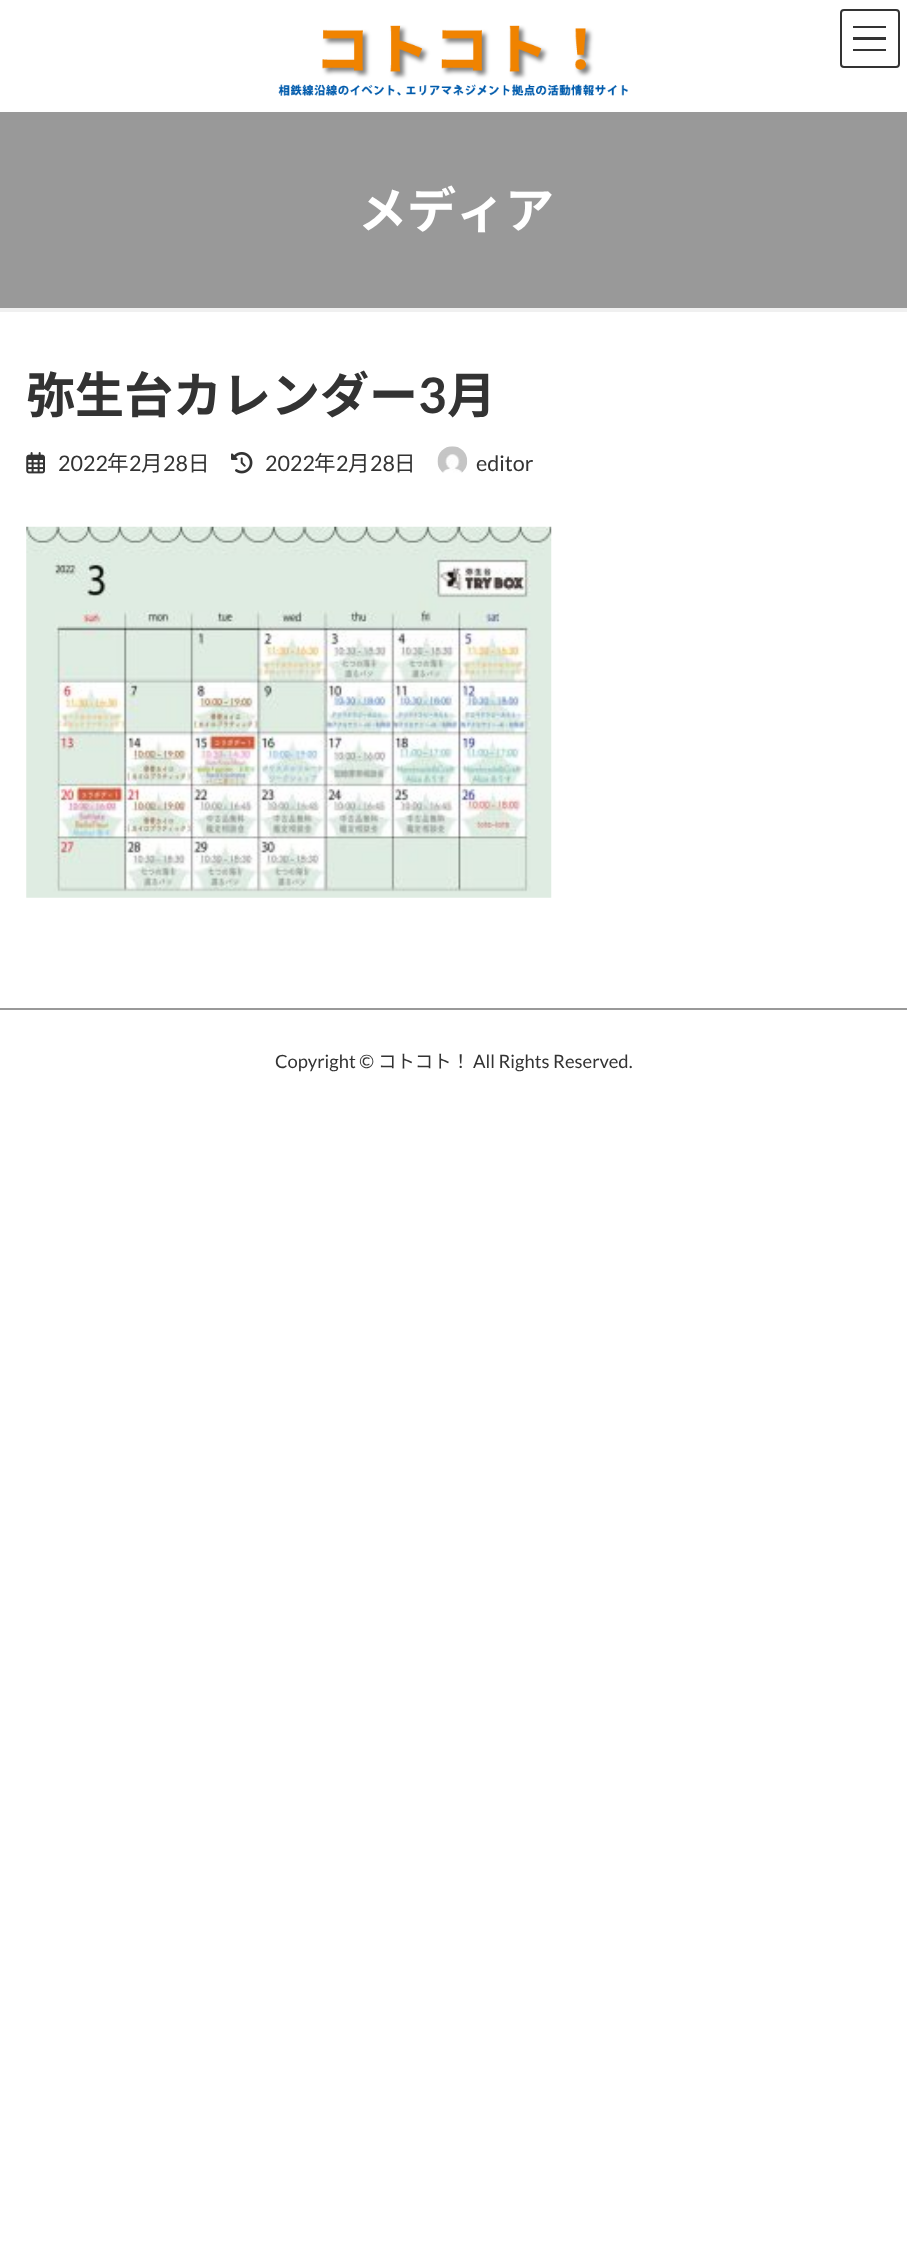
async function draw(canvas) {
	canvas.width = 907;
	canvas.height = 2263;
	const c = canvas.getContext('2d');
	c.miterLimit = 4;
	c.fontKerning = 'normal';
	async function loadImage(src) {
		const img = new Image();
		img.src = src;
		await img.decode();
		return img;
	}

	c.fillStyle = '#fff';
	c.fillRect(0, 0, 907, 2263);
	c.drawImage(await loadImage('img1.png'), 278, 25, 351, 71);
	for (const [x, y, w, h, color] of [
		[853, 26, 33, 2, '#333'],
		[853, 37, 33, 3, '#333'],
		[853, 49, 33, 2, '#333'],
	]) {
		c.fillStyle = color;
		c.fillRect(x, y, w, h);
	}
	c.beginPath();
	c.roundRect(841, 10, 58, 57, 3);
	c.strokeStyle = '#333';
	c.lineWidth = 2;
	c.stroke();
	c.fillStyle = '#999';
	c.fillRect(0, 112, 907, 196);
	c.font = 'bold 49px Noto Sans JP';
	c.fillStyle = '#fff';
	c.fillText('メディア', 358, 228);
	c.fillStyle = '#f0f0f0';
	c.fillRect(0, 308, 907, 4);
	c.fillStyle = '#333';
	c.fillText('弥生台カレンダー', 26, 413);
	c.font = 'bold 49px Lato';
	c.fillText('3', 418, 413);
	c.font = 'bold 49px Noto Sans JP';
	c.fillText('月', 447, 413);
	c.drawImage(await loadImage('img2.png'), 26, 452, 19, 22);
	c.font = '21.5px Lato';
	c.fillText('2022', 58, 471);
	c.font = '21.5px Noto Sans JP';
	c.fillText('年', 107, 471);
	c.font = '21.5px Lato';
	c.fillText('2', 129, 471);
	c.font = '21.5px Noto Sans JP';
	c.fillText('月', 141, 471);
	c.font = '21.5px Lato';
	c.fillText('28', 163, 471);
	c.font = '21.5px Noto Sans JP';
	c.fillText('日', 188, 471);
	c.drawImage(await loadImage('img3.png'), 231, 452, 22, 22);
	c.font = '21.5px Lato';
	c.fillText('2022', 265, 471);
	c.font = '21.5px Noto Sans JP';
	c.fillText('年', 314, 471);
	c.font = '21.5px Lato';
	c.fillText('2', 336, 471);
	c.font = '21.5px Noto Sans JP';
	c.fillText('月', 348, 471);
	c.font = '21.5px Lato';
	c.fillText('28', 370, 471);
	c.font = '21.5px Noto Sans JP';
	c.fillText('日', 394, 471);
	c.drawImage(await loadImage('img4.png'), 437, 446, 31, 27);
	c.font = '21.5px Lato';
	c.fillText('editor', 476, 471);
	c.drawImage(await loadImage('img5.png'), 26, 526, 526, 372);
	c.fillStyle = '#999';
	c.fillRect(0, 1008, 907, 2);
	c.font = '18.4px Lato';
	c.fillStyle = '#333';
	c.fillText('Copyright ©', 275, 1068);
	c.font = '18.4px Noto Sans JP';
	c.fillText('コトコト！', 378, 1068);
	c.font = '18.4px Lato';
	c.fillText('All Rights Reserved.', 473, 1068);
}

draw(document.querySelector('canvas'));
